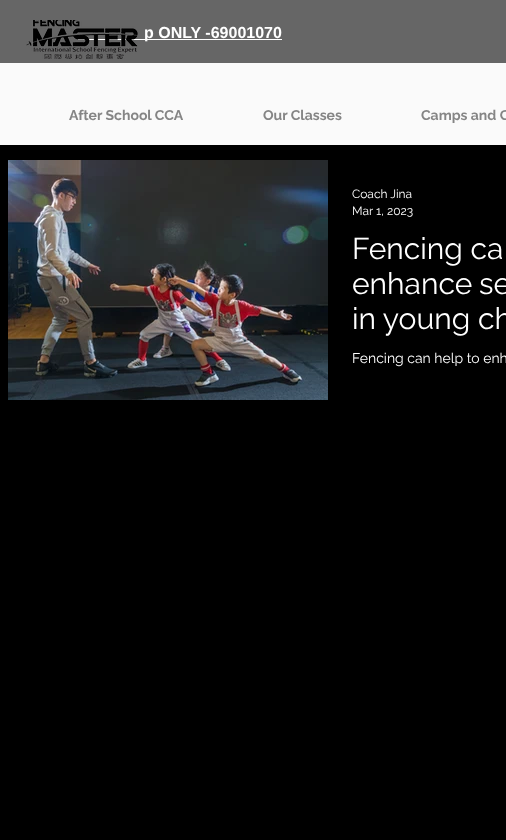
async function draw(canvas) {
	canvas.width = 506;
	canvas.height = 840;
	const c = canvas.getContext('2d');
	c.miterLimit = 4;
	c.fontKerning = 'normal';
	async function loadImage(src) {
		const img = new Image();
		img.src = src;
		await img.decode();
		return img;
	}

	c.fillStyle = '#000';
	c.fillRect(0, 0, 506, 840);
	c.fillStyle = '#666';
	c.fillRect(0, 0, 506, 63);
	c.fillStyle = '#fff';
	c.fillRect(78, 39, 204, 1);
	c.drawImage(await loadImage('img1.png'), 26, 20, 112, 39);
	c.font = 'bold 16px Liberation Sans';
	c.fillText('p ONLY -69001070', 144, 38);
	c.fillStyle = '#fafafa';
	c.fillRect(0, 63, 506, 82);
	c.font = 'bold 14px Raleway';
	c.fillStyle = '#858585';
	for (const [text, x, y] of [
		['After School CCA', 69, 120],
		['Our Classes', 263, 120],
		['Camps and C', 421, 120],
	]) {
		c.fillText(text, x, y);
	}
	c.drawImage(await loadImage('img2.png'), 8, 160, 320, 240);
	c.font = '12px Raleway';
	c.fillStyle = '#fff';
	c.fillText('Coach Jina', 352, 198);
	c.fillText('Mar 1, 2023', 352, 215);
	c.font = '30px Raleway';
	c.fillText('Fencing ca', 352, 259);
	c.wordSpacing = '-1px';
	c.fillText('enhance se', 352, 294);
	c.wordSpacing = '0px';
	c.fillText('in young ch', 352, 329);
	c.font = '14px Raleway';
	c.fillText('Fencing can help to enh', 352, 363);
}

draw(document.querySelector('canvas'));
